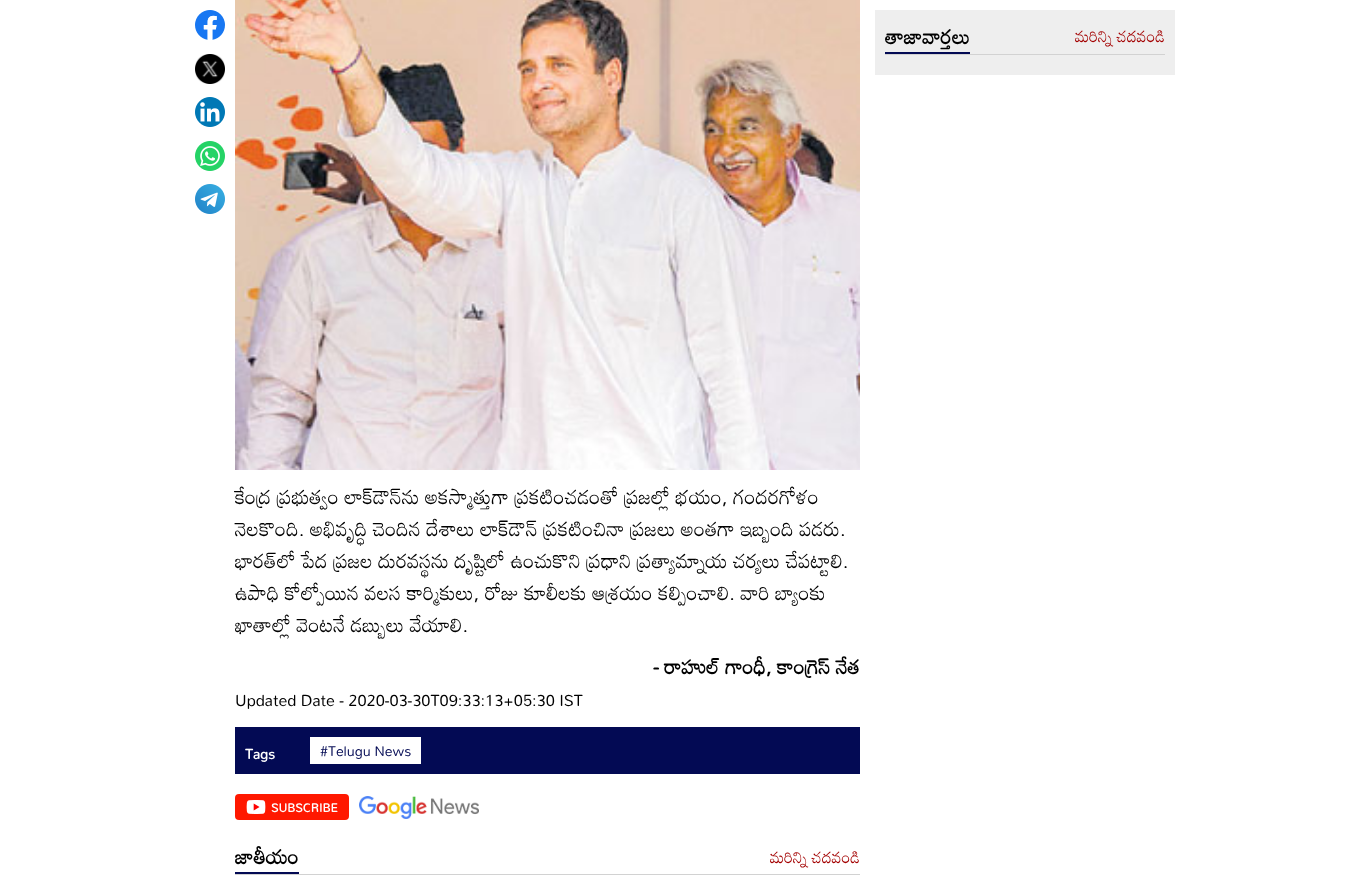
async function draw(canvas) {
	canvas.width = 1370;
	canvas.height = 876;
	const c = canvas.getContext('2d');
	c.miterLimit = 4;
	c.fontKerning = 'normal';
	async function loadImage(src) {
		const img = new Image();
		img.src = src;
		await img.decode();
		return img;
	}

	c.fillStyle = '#fff';
	c.fillRect(0, 0, 1370, 876);
	c.drawImage(await loadImage('img1.png'), 195, 10, 30, 30);
	c.drawImage(await loadImage('img2.png'), 195, 54, 30, 30);
	c.drawImage(await loadImage('img3.png'), 195, 97, 30, 30);
	c.drawImage(await loadImage('img4.png'), 195, 141, 30, 30);
	c.drawImage(await loadImage('img5.png'), 195, 184, 30, 30);
	for (const [x, y, w, h, color] of [
		[875, 10, 300, 65, '#eee'],
		[885, 54, 280, 1, '#d2d2d2'],
		[885, 52, 85, 2, '#030a54'],
	]) {
		c.fillStyle = color;
		c.fillRect(x, y, w, h);
	}
	c.font = 'bold 20px Mandali';
	c.fillStyle = '#000';
	c.fillText('తాజావార్తలు', 885, 44);
	c.font = '16px Mandali';
	c.fillStyle = '#a30000';
	c.fillText('మరిన్ని చదవండి', 1075, 42);
	c.drawImage(await loadImage('img6.png'), 235, 0, 625, 470);
	c.font = '20px Mandali';
	c.fillStyle = '#000';
	for (const [text, x, y] of [
		['కేంద్ర ప్రభుత్వం లాక్‌డౌన్‌ను అకస్మాత్తుగా ప్రకటించడంతో ప్రజల్లో భయం, గందరగోళం', 235, 504],
		['నెలకొంది. అభివృద్ధి చెందిన దేశాలు లాక్‌డౌన్‌ ప్రకటించినా ప్రజలు అంతగా ఇబ్బంది పడరు.', 235, 536],
		['భారత్‌లో పేద ప్రజల దురవస్థను దృష్టిలో ఉంచుకొని ప్రధాని ప్రత్యామ్నాయ చర్యలు చేపట్టాలి.', 235, 568],
		['ఉపాధి కోల్పోయిన వలస కార్మికులు, రోజు కూలీలకు ఆశ్రయం కల్పించాలి. వారి బ్యాంకు', 235, 600],
		['ఖాతాల్లో వెంటనే డబ్బులు వేయాలి.', 235, 632],
	]) {
		c.fillText(text, x, y);
	}
	c.font = 'bold 20px Mandali';
	c.fillText('- రాహుల్‌ గాంధీ, కాంగ్రెస్‌ నేత', 653, 674);
	c.font = '16px Mandali';
	c.fillText('Updated Date - 2020-03-30T09:33:13+05:30 IST', 235, 706);
	c.fillStyle = '#030a54';
	c.fillRect(235, 727, 625, 47);
	c.font = 'bold 14px Mandali';
	c.fillStyle = '#fff';
	c.fillText('Tags', 245, 759);
	c.fillRect(310, 737, 111, 27);
	c.font = '14px Mandali';
	c.fillStyle = '#030a54';
	c.fillText('#Telugu News', 320, 756);
	c.fillStyle = '#ff1800';
	c.beginPath();
	c.roundRect(235, 794, 114, 26, 4);
	c.fill();
	c.drawImage(await loadImage('img7.png'), 246, 800, 20, 14);
	c.font = 'bold 12px Mandali';
	c.fillStyle = '#fff';
	c.fillText('SUBSCRIBE', 271, 812);
	c.drawImage(await loadImage('img8.png'), 359, 796, 120, 23);
	c.fillStyle = '#d2d2d2';
	c.fillRect(235, 874, 625, 1);
	c.fillStyle = '#030a54';
	c.fillRect(235, 872, 64, 2);
	c.font = 'bold 20px Mandali';
	c.fillStyle = '#000';
	c.fillText('జాతీయం', 235, 864);
	c.font = '16px Mandali';
	c.fillStyle = '#a30000';
	c.fillText('మరిన్ని చదవండి', 770, 863);
}

draw(document.querySelector('canvas'));
